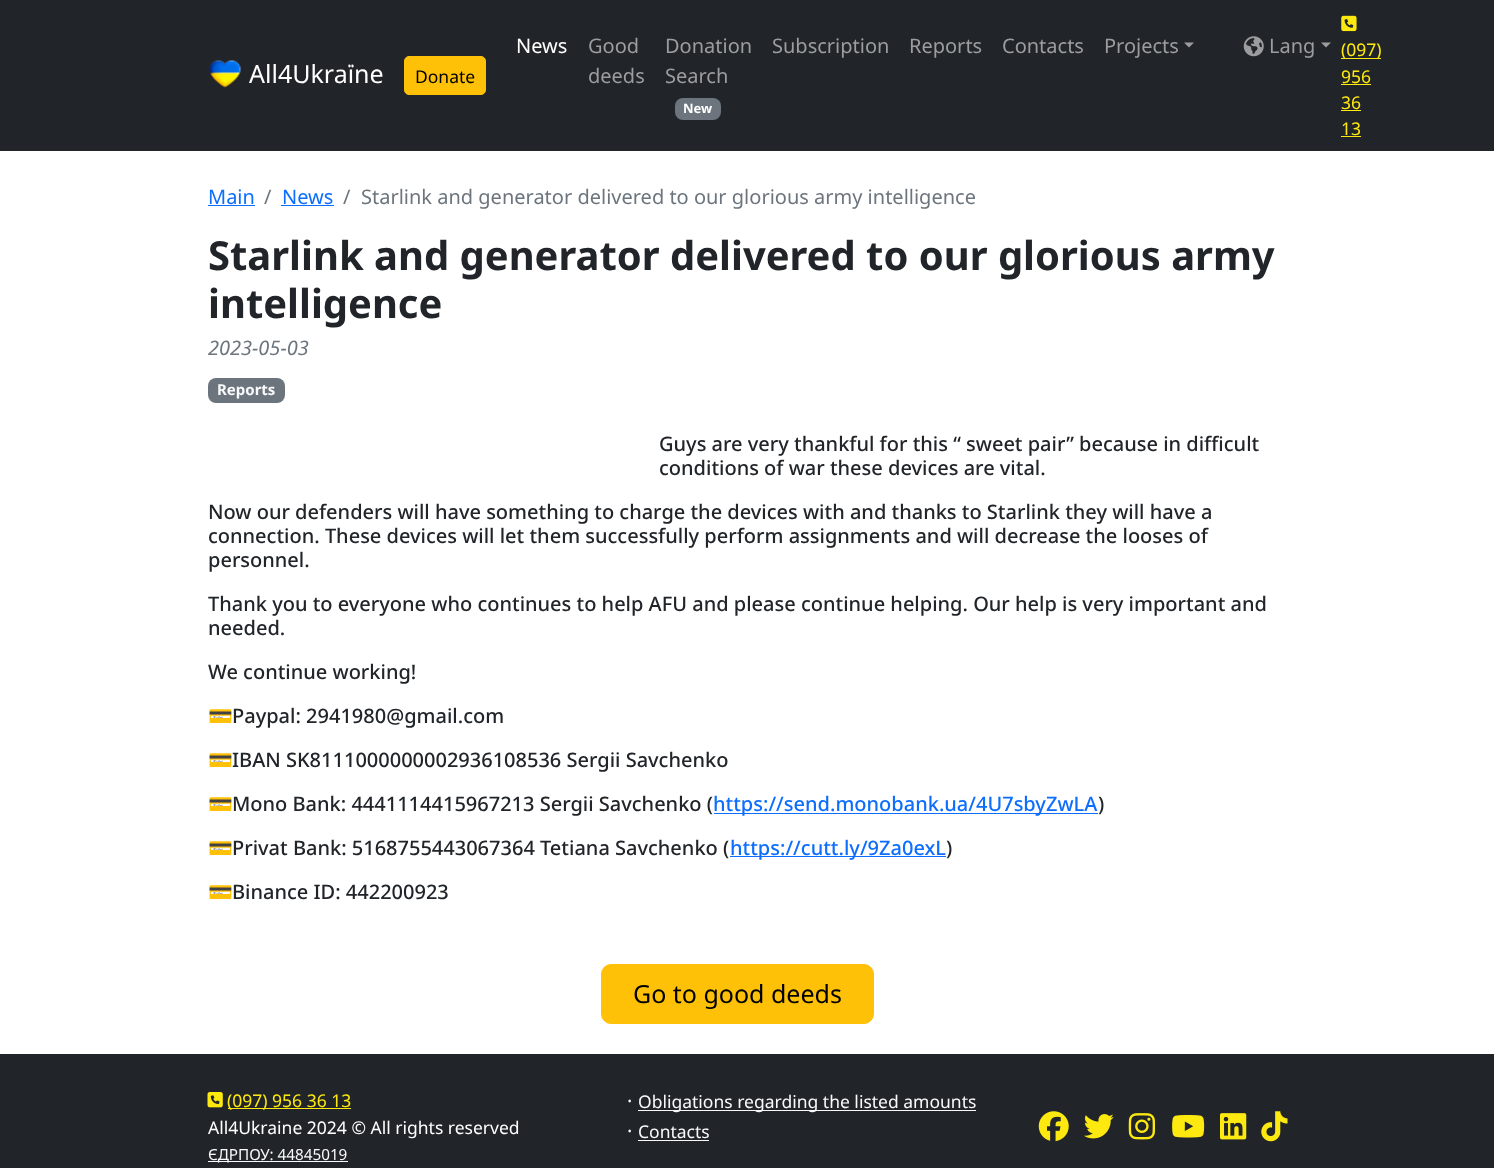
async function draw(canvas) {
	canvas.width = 1494;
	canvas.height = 1168;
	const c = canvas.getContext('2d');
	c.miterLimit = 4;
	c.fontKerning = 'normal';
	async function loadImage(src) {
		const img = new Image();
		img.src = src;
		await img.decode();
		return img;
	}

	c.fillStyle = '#fff';
	c.fillRect(0, 0, 1494, 1168);
	c.fillStyle = '#212529';
	c.fillRect(0, 0, 1494, 151);
	c.drawImage(await loadImage('img1.png'), 209, 60, 32, 28);
	c.font = '25px Noto Sans';
	c.fillStyle = '#fff';
	c.fillText('All4Ukraїne', 249, 83);
	c.fillStyle = '#ffc107';
	c.beginPath();
	c.roundRect(404.5, 56.5, 81, 38, 4.5);
	c.fill();
	c.strokeStyle = '#ffc107';
	c.stroke();
	c.font = '17.5px Noto Sans';
	c.fillStyle = '#000';
	c.fillText('Donate', 415, 83);
	c.font = '20px Noto Sans';
	c.fillStyle = '#fff';
	c.fillText('News', 516, 53);
	c.fillStyle = '#9b9d9f';
	for (const [text, x, y] of [
		['Good', 588, 53],
		['deeds', 588, 83],
		['Donation', 665, 53],
		['Search', 665, 83],
	]) {
		c.fillText(text, x, y);
	}
	c.fillStyle = '#6c757d';
	c.beginPath();
	c.roundRect(675, 98, 46, 22, 8);
	c.fill();
	c.font = 'bold 13px Noto Sans';
	c.fillStyle = '#fff';
	c.fillText('New', 683, 113);
	c.font = '20px Noto Sans';
	c.fillStyle = '#9b9d9f';
	for (const [text, x, y] of [
		['Subscription', 772, 53],
		['Reports', 909, 53],
		['Contacts', 1002, 53],
		['Projects', 1104, 53],
	]) {
		c.fillText(text, x, y);
	}
	c.beginPath();
	c.moveTo(1184, 42.5);
	c.lineTo(1194, 42.5);
	c.lineTo(1189, 47.5);
	c.closePath();
	c.fill();
	c.drawImage(await loadImage('img2.png'), 1243, 36, 21, 21);
	c.fillText('Lang', 1269, 53);
	c.beginPath();
	c.moveTo(1321, 42.5);
	c.lineTo(1331, 42.5);
	c.lineTo(1326, 47.5);
	c.closePath();
	c.fill();
	c.drawImage(await loadImage('img3.png'), 1341, 15, 16, 17);
	c.fillStyle = '#fde910';
	c.fillRect(1341, 58, 40, 1);
	c.font = '17.5px Noto Sans';
	c.fillText('(097)', 1341, 56);
	c.fillText('956', 1341, 83);
	c.fillRect(1341, 84, 30, 1);
	c.fillText('36', 1341, 109);
	c.fillRect(1341, 110, 20, 1);
	c.fillText('13', 1341, 135);
	c.fillRect(1341, 136, 20, 1);
	c.font = '20px Noto Sans';
	c.fillStyle = '#0d6efd';
	c.fillText('Main', 208, 204);
	c.fillRect(208, 205, 47, 1);
	c.fillStyle = '#6c757d';
	c.fillText('/', 264, 204);
	c.fillStyle = '#0d6efd';
	c.fillText('News', 282, 204);
	c.fillRect(281, 205, 53, 1);
	c.fillStyle = '#6c757d';
	c.fillText('/', 343, 204);
	c.fillText('Starlink and generator delivered to our glorious army intelligence', 361, 204);
	c.font = 'bold 39.95px Noto Sans';
	c.fillStyle = '#212529';
	c.fillText('Starlink and generator delivered to our glorious army', 208, 270);
	c.fillText('intelligence', 208, 318);
	c.font = 'italic 20px Noto Sans';
	c.fillStyle = '#6c757d';
	c.fillText('2023-05-03', 208, 355);
	c.beginPath();
	c.roundRect(208, 378, 77, 25, 8);
	c.fill();
	c.font = 'bold 15px Noto Sans';
	c.fillStyle = '#f8f9fa';
	c.fillText('Reports', 217, 395);
	c.font = '500 20px Noto Sans';
	c.fillStyle = '#212529';
	for (const [text, x, y] of [
		['Guys are very thankful for this “ sweet pair” because in difficult', 659, 451],
		['conditions of war these devices are vital.', 659, 475],
		['Now our defenders will have something to charge the devices with and thanks to Starlink they will have a', 208, 519],
		['connection. These devices will let them successfully perform assignments and will decrease the looses of', 208, 543],
		['personnel.', 208, 567],
		['Thank you to everyone who continues to help AFU and please continue helping. Our help is very important and', 208, 611],
		['needed.', 208, 635],
		['We continue working!', 208, 679],
	]) {
		c.fillText(text, x, y);
	}
	c.font = '20px Noto Color Emoji';
	c.fillText('💳', 208, 723);
	c.font = '500 20px Noto Sans';
	c.fillText('Paypal: 2941980@gmail.com', 232, 723);
	c.font = '20px Noto Color Emoji';
	c.fillText('💳', 208, 767);
	c.font = '500 20px Noto Sans';
	c.fillText('IBAN SK8111000000002936108536 Sergii Savchenko', 232, 767);
	c.font = '20px Noto Color Emoji';
	c.fillText('💳', 208, 811);
	c.font = '500 20px Noto Sans';
	c.fillText('Mono Bank: 4441114415967213 Sergii Savchenko (', 232, 811);
	c.fillStyle = '#0d6efd';
	c.fillRect(714, 813, 384, 1);
	c.fillText('https://send.monobank.ua/4U7sbyZwLA', 713, 811);
	c.fillStyle = '#212529';
	c.fillText(')', 1098, 811);
	c.font = '20px Noto Color Emoji';
	c.fillText('💳', 208, 855);
	c.font = '500 20px Noto Sans';
	c.fillText('Privat Bank: 5168755443067364 Tetiana Savchenko (', 232, 855);
	c.fillStyle = '#0d6efd';
	c.fillRect(730, 856, 216, 1);
	c.fillText('https://cutt.ly/9Za0exL', 730, 855);
	c.fillStyle = '#212529';
	c.fillText(')', 946, 855);
	c.font = '20px Noto Color Emoji';
	c.fillText('💳', 208, 899);
	c.font = '500 20px Noto Sans';
	c.fillText('Binance ID: 442200923', 232, 899);
	c.fillStyle = '#ffc107';
	c.beginPath();
	c.roundRect(601.5, 964.5, 272, 59, 9.5);
	c.fill();
	c.stroke();
	c.font = '25px Noto Sans';
	c.fillStyle = '#000';
	c.fillText('Go to good deeds', 633, 1003);
	c.fillStyle = '#212529';
	c.fillRect(0, 1054, 1494, 114);
	c.drawImage(await loadImage('img4.png'), 207, 1092, 16, 16);
	c.fillStyle = '#fde910';
	c.fillRect(228, 1108, 123, 1);
	c.font = '17.5px Noto Sans';
	c.fillText('(097) 956 36 13', 227, 1107);
	c.fillStyle = '#fff';
	c.fillText('All4Ukraine 2024 © All rights reserved', 208, 1134);
	c.fillStyle = '#f8f9fa';
	c.fillRect(208, 1161, 140, 1);
	c.font = '15.25px Noto Sans';
	c.fillText('ЄДРПОУ: 44845019', 208, 1160);
	c.font = '20px Noto Sans';
	c.fillStyle = '#fff';
	c.fillText('·', 627, 1108);
	c.fillStyle = '#f8f9fa';
	c.fillRect(638, 1110, 338, 1);
	c.font = '17.5px Noto Sans';
	c.fillText('Obligations regarding the listed amounts', 638, 1108);
	c.font = '20px Noto Sans';
	c.fillStyle = '#fff';
	c.fillText('·', 627, 1138);
	c.font = '17.5px Noto Sans';
	c.fillStyle = '#f8f9fa';
	c.fillText('Contacts', 638, 1138);
	c.fillRect(638, 1140, 71, 1);
	c.drawImage(await loadImage('img5.png'), 1038, 1111, 31, 31);
	c.drawImage(await loadImage('img6.png'), 1084, 1114, 30, 25);
	c.drawImage(await loadImage('img7.png'), 1128, 1113, 27, 27);
	c.drawImage(await loadImage('img8.png'), 1172, 1115, 33, 23);
	c.drawImage(await loadImage('img9.png'), 1220, 1113, 27, 27);
	c.drawImage(await loadImage('img10.png'), 1261, 1111, 27, 31);
}

draw(document.querySelector('canvas'));
